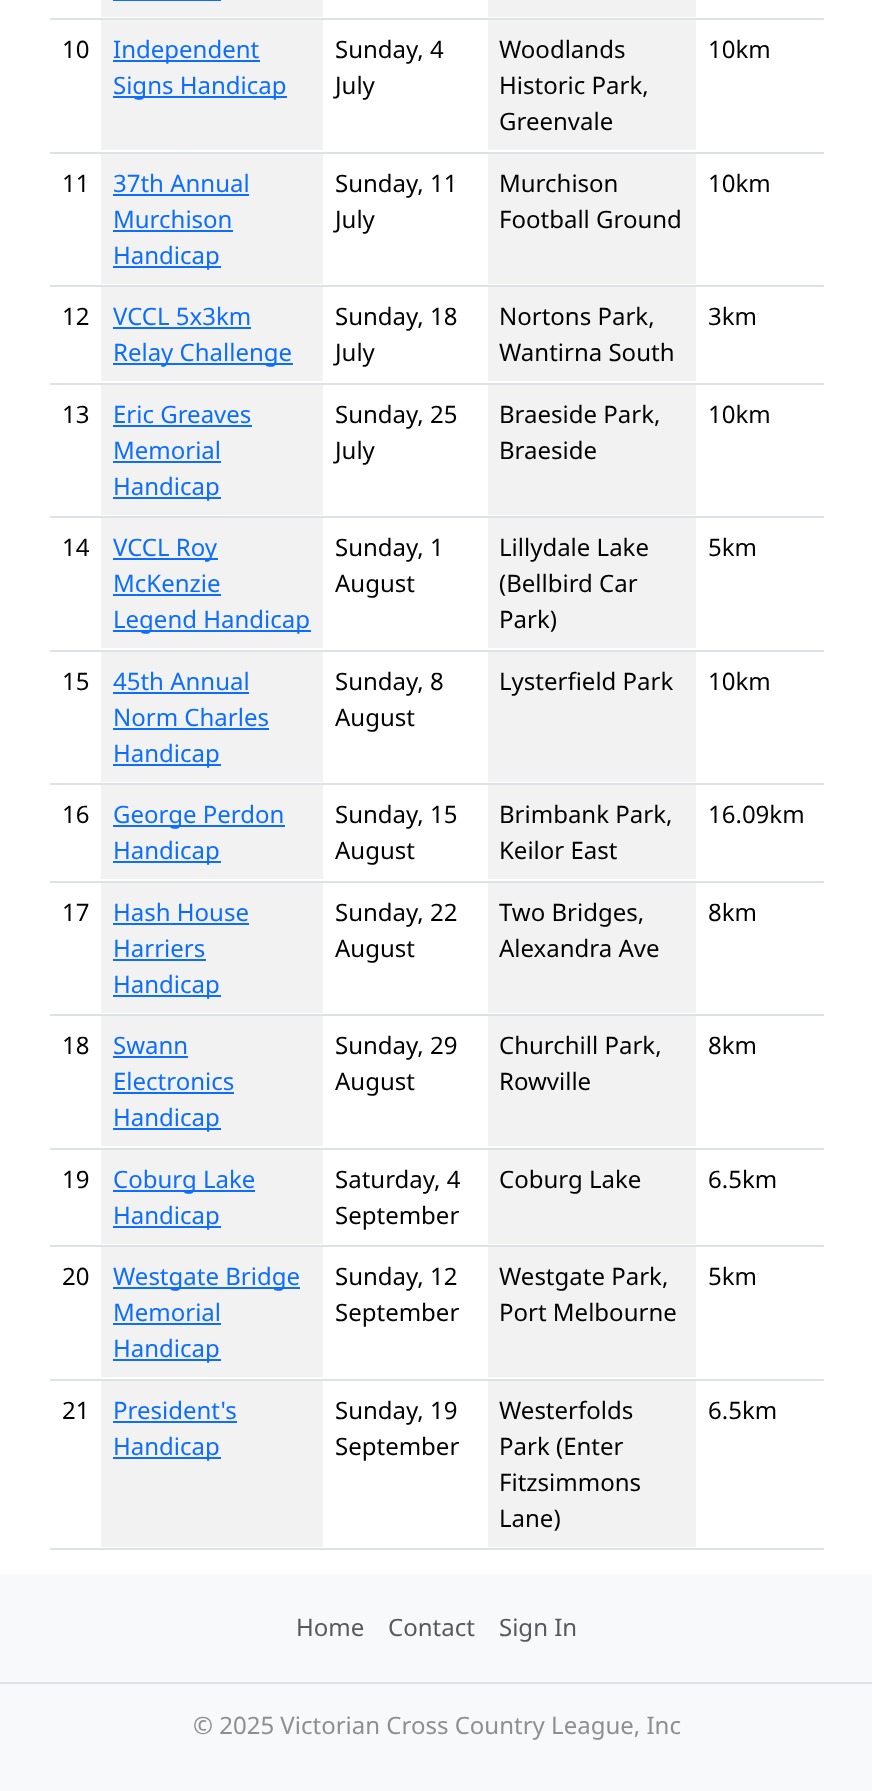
async function draw(canvas) {
	canvas.width = 872;
	canvas.height = 1791;
	const c = canvas.getContext('2d');
	c.miterLimit = 4;
	c.fontKerning = 'normal';

	c.fillStyle = '#fff';
	c.fillRect(0, 0, 872, 1791);
	for (const [x, y, w, h, color] of [
		[101, 0, 222, 17, '#f2f2f2'],
		[113, 0, 108, 1, '#0d6efd'],
		[488, 0, 208, 17, '#f2f2f2'],
		[50, 18, 774, 2, '#dee2e6'],
	]) {
		c.fillStyle = color;
		c.fillRect(x, y, w, h);
	}
	c.font = '24px Noto Sans';
	c.fillStyle = '#000';
	c.fillText('10', 62, 58);
	c.fillStyle = '#f2f2f2';
	c.fillRect(101, 20, 222, 130);
	c.fillStyle = '#0d6efd';
	c.fillRect(113, 60, 147, 2);
	c.fillText('Independent', 113, 58);
	c.fillRect(113, 96, 174, 2);
	c.fillText('Signs Handicap', 113, 94);
	c.fillStyle = '#000';
	c.fillText('Sunday, 4', 335, 58);
	c.fillText('July', 335, 94);
	c.fillStyle = '#f2f2f2';
	c.fillRect(488, 20, 208, 130);
	c.fillStyle = '#000';
	for (const [text, x, y] of [
		['Woodlands', 499, 58],
		['Historic Park,', 499, 94],
		['Greenvale', 499, 130],
	]) {
		c.fillText(text, x, y);
	}
	c.fillStyle = '#dee2e6';
	c.fillRect(50, 152, 774, 2);
	c.fillStyle = '#000';
	c.fillText('10km', 708, 58);
	c.fillText('11', 62, 192);
	c.fillStyle = '#f2f2f2';
	c.fillRect(101, 154, 222, 130);
	c.fillStyle = '#0d6efd';
	c.fillText('37th Annual', 113, 192);
	c.fillRect(113, 194, 136, 2);
	c.fillText('Murchison', 113, 228);
	c.fillRect(113, 230, 120, 2);
	c.fillRect(113, 266, 108, 2);
	c.fillText('Handicap', 113, 264);
	c.fillStyle = '#000';
	c.fillText('Sunday, 11', 335, 192);
	c.fillText('July', 335, 228);
	c.fillStyle = '#f2f2f2';
	c.fillRect(488, 154, 208, 130);
	c.fillStyle = '#000';
	c.fillText('Murchison', 499, 192);
	c.fillText('Football Ground', 499, 228);
	c.fillStyle = '#dee2e6';
	c.fillRect(50, 285, 774, 2);
	c.fillStyle = '#000';
	c.fillText('10km', 708, 192);
	c.fillText('12', 62, 325);
	c.fillStyle = '#f2f2f2';
	c.fillRect(101, 287, 222, 94);
	c.fillStyle = '#0d6efd';
	c.fillText('VCCL 5x3km', 113, 325);
	c.fillRect(113, 327, 138, 2);
	c.fillRect(113, 363, 180, 2);
	c.fillText('Relay Challenge', 113, 361);
	c.fillStyle = '#000';
	c.fillText('Sunday, 18', 335, 325);
	c.fillText('July', 335, 361);
	c.fillStyle = '#f2f2f2';
	c.fillRect(488, 287, 208, 94);
	c.fillStyle = '#000';
	c.fillText('Nortons Park,', 499, 325);
	c.fillText('Wantirna South', 499, 361);
	c.fillStyle = '#dee2e6';
	c.fillRect(50, 383, 774, 2);
	c.fillStyle = '#000';
	c.fillText('3km', 708, 325);
	c.fillText('13', 62, 423);
	c.fillStyle = '#f2f2f2';
	c.fillRect(101, 385, 222, 130);
	c.fillStyle = '#0d6efd';
	c.fillText('Eric Greaves', 113, 423);
	c.fillRect(113, 425, 139, 2);
	c.fillText('Memorial', 113, 459);
	c.fillRect(113, 461, 108, 2);
	c.fillRect(113, 497, 108, 2);
	c.fillText('Handicap', 113, 495);
	c.fillStyle = '#000';
	c.fillText('Sunday, 25', 335, 423);
	c.fillText('July', 335, 459);
	c.fillStyle = '#f2f2f2';
	c.fillRect(488, 385, 208, 130);
	c.fillStyle = '#000';
	c.fillText('Braeside Park,', 499, 423);
	c.fillText('Braeside', 499, 459);
	c.fillStyle = '#dee2e6';
	c.fillRect(50, 516, 774, 2);
	c.fillStyle = '#000';
	c.fillText('10km', 708, 423);
	c.fillText('14', 62, 556);
	c.fillStyle = '#f2f2f2';
	c.fillRect(101, 518, 222, 130);
	c.fillStyle = '#0d6efd';
	c.fillRect(113, 558, 105, 2);
	c.fillText('VCCL Roy', 113, 556);
	c.fillText('McKenzie', 113, 592);
	c.fillRect(113, 594, 108, 2);
	c.fillRect(113, 630, 198, 2);
	c.fillText('Legend Handicap', 113, 628);
	c.fillStyle = '#000';
	c.fillText('Sunday, 1', 335, 556);
	c.fillText('August', 335, 592);
	c.fillStyle = '#f2f2f2';
	c.fillRect(488, 518, 208, 130);
	c.fillStyle = '#000';
	for (const [text, x, y] of [
		['Lillydale Lake', 499, 556],
		['(Bellbird Car', 499, 592],
		['Park)', 499, 628],
	]) {
		c.fillText(text, x, y);
	}
	c.fillStyle = '#dee2e6';
	c.fillRect(50, 650, 774, 2);
	c.fillStyle = '#000';
	c.fillText('5km', 708, 556);
	c.fillText('15', 62, 690);
	c.fillStyle = '#f2f2f2';
	c.fillRect(101, 652, 222, 130);
	c.fillStyle = '#0d6efd';
	c.fillText('45th Annual', 113, 690);
	c.fillRect(113, 692, 136, 2);
	c.fillText('Norm Charles', 113, 726);
	c.fillRect(113, 728, 156, 2);
	c.fillRect(113, 764, 108, 2);
	c.fillText('Handicap', 113, 762);
	c.fillStyle = '#000';
	c.fillText('Sunday, 8', 335, 690);
	c.fillText('August', 335, 726);
	c.fillStyle = '#f2f2f2';
	c.fillRect(488, 652, 208, 130);
	c.fillStyle = '#000';
	c.fillText('Lysterfield Park', 499, 690);
	c.fillStyle = '#dee2e6';
	c.fillRect(50, 783, 774, 2);
	c.fillStyle = '#000';
	c.fillText('10km', 708, 690);
	c.fillText('16', 62, 823);
	c.fillStyle = '#f2f2f2';
	c.fillRect(101, 785, 222, 94);
	c.fillStyle = '#0d6efd';
	c.fillRect(113, 825, 172, 2);
	c.fillText('George Perdon', 113, 823);
	c.fillRect(113, 861, 108, 2);
	c.fillText('Handicap', 113, 859);
	c.fillStyle = '#000';
	c.fillText('Sunday, 15', 335, 823);
	c.fillText('August', 335, 859);
	c.fillStyle = '#f2f2f2';
	c.fillRect(488, 785, 208, 94);
	c.fillStyle = '#000';
	c.fillText('Brimbank Park,', 499, 823);
	c.fillText('Keilor East', 499, 859);
	c.fillStyle = '#dee2e6';
	c.fillRect(50, 881, 774, 2);
	c.fillStyle = '#000';
	c.fillText('16.09km', 708, 823);
	c.fillText('17', 62, 921);
	c.fillStyle = '#f2f2f2';
	c.fillRect(101, 883, 222, 130);
	c.fillStyle = '#0d6efd';
	c.fillText('Hash House', 113, 921);
	c.fillRect(113, 923, 136, 2);
	c.fillText('Harriers', 113, 957);
	c.fillRect(113, 959, 93, 2);
	c.fillRect(113, 995, 108, 2);
	c.fillText('Handicap', 113, 993);
	c.fillStyle = '#000';
	c.fillText('Sunday, 22', 335, 921);
	c.fillText('August', 335, 957);
	c.fillStyle = '#f2f2f2';
	c.fillRect(488, 883, 208, 130);
	c.fillStyle = '#000';
	c.fillText('Two Bridges,', 499, 921);
	c.fillText('Alexandra Ave', 499, 957);
	c.fillStyle = '#dee2e6';
	c.fillRect(50, 1014, 774, 2);
	c.fillStyle = '#000';
	c.fillText('8km', 708, 921);
	c.fillText('18', 62, 1054);
	c.fillStyle = '#f2f2f2';
	c.fillRect(101, 1016, 222, 130);
	c.fillStyle = '#0d6efd';
	c.fillText('Swann', 113, 1054);
	c.fillRect(113, 1056, 75, 2);
	c.fillText('Electronics', 113, 1090);
	c.fillRect(113, 1092, 121, 2);
	c.fillRect(113, 1128, 108, 2);
	c.fillText('Handicap', 113, 1126);
	c.fillStyle = '#000';
	c.fillText('Sunday, 29', 335, 1054);
	c.fillText('August', 335, 1090);
	c.fillStyle = '#f2f2f2';
	c.fillRect(488, 1016, 208, 130);
	c.fillStyle = '#000';
	c.fillText('Churchill Park,', 499, 1054);
	c.fillText('Rowville', 499, 1090);
	c.fillStyle = '#dee2e6';
	c.fillRect(50, 1148, 774, 2);
	c.fillStyle = '#000';
	c.fillText('8km', 708, 1054);
	c.fillText('19', 62, 1188);
	c.fillStyle = '#f2f2f2';
	c.fillRect(101, 1150, 222, 94);
	c.fillStyle = '#0d6efd';
	c.fillRect(113, 1190, 142, 2);
	c.fillText('Coburg Lake', 113, 1188);
	c.fillRect(113, 1226, 108, 2);
	c.fillText('Handicap', 113, 1224);
	c.fillStyle = '#000';
	c.fillText('Saturday, 4', 335, 1188);
	c.fillText('September', 335, 1224);
	c.fillStyle = '#f2f2f2';
	c.fillRect(488, 1150, 208, 94);
	c.fillStyle = '#000';
	c.fillText('Coburg Lake', 499, 1188);
	c.fillStyle = '#dee2e6';
	c.fillRect(50, 1245, 774, 2);
	c.fillStyle = '#000';
	c.fillText('6.5km', 708, 1188);
	c.fillText('20', 62, 1285);
	c.fillStyle = '#f2f2f2';
	c.fillRect(101, 1247, 222, 130);
	c.fillStyle = '#0d6efd';
	c.fillRect(113, 1287, 187, 2);
	c.fillText('Westgate Bridge', 113, 1285);
	c.fillText('Memorial', 113, 1321);
	c.fillRect(113, 1323, 108, 2);
	c.fillRect(113, 1359, 108, 2);
	c.fillText('Handicap', 113, 1357);
	c.fillStyle = '#000';
	c.fillText('Sunday, 12', 335, 1285);
	c.fillText('September', 335, 1321);
	c.fillStyle = '#f2f2f2';
	c.fillRect(488, 1247, 208, 130);
	c.fillStyle = '#000';
	c.fillText('Westgate Park,', 499, 1285);
	c.fillText('Port Melbourne', 499, 1321);
	c.fillStyle = '#dee2e6';
	c.fillRect(50, 1379, 774, 2);
	c.fillStyle = '#000';
	c.fillText('5km', 708, 1285);
	c.fillText('21', 62, 1419);
	c.fillStyle = '#f2f2f2';
	c.fillRect(101, 1381, 222, 166);
	c.fillStyle = '#0d6efd';
	c.fillText('President\'s', 113, 1419);
	c.fillRect(113, 1421, 124, 2);
	c.fillRect(113, 1457, 108, 2);
	c.fillText('Handicap', 113, 1455);
	c.fillStyle = '#000';
	c.fillText('Sunday, 19', 335, 1419);
	c.fillText('September', 335, 1455);
	c.fillStyle = '#f2f2f2';
	c.fillRect(488, 1381, 208, 166);
	c.fillStyle = '#000';
	for (const [text, x, y] of [
		['Westerfolds', 499, 1419],
		['Park (Enter', 499, 1455],
		['Fitzsimmons', 499, 1491],
		['Lane)', 499, 1527],
	]) {
		c.fillText(text, x, y);
	}
	c.fillStyle = '#dee2e6';
	c.fillRect(50, 1548, 774, 2);
	c.fillStyle = '#000';
	c.fillText('6.5km', 708, 1419);
	c.fillStyle = '#f8f9fa';
	c.fillRect(0, 1574, 872, 217);
	c.fillStyle = '#dee2e6';
	c.fillRect(0, 1682, 872, 2);
	c.fillStyle = '#575a5d';
	for (const [text, x, y] of [
		['Home', 296, 1636],
		['Contact', 388, 1636],
		['Sign In', 499, 1636],
	]) {
		c.fillText(text, x, y);
	}
	c.fillStyle = '#8d8f92';
	c.fillText('© 2025 Victorian Cross Country League, Inc', 193, 1734);
}

draw(document.querySelector('canvas'));
